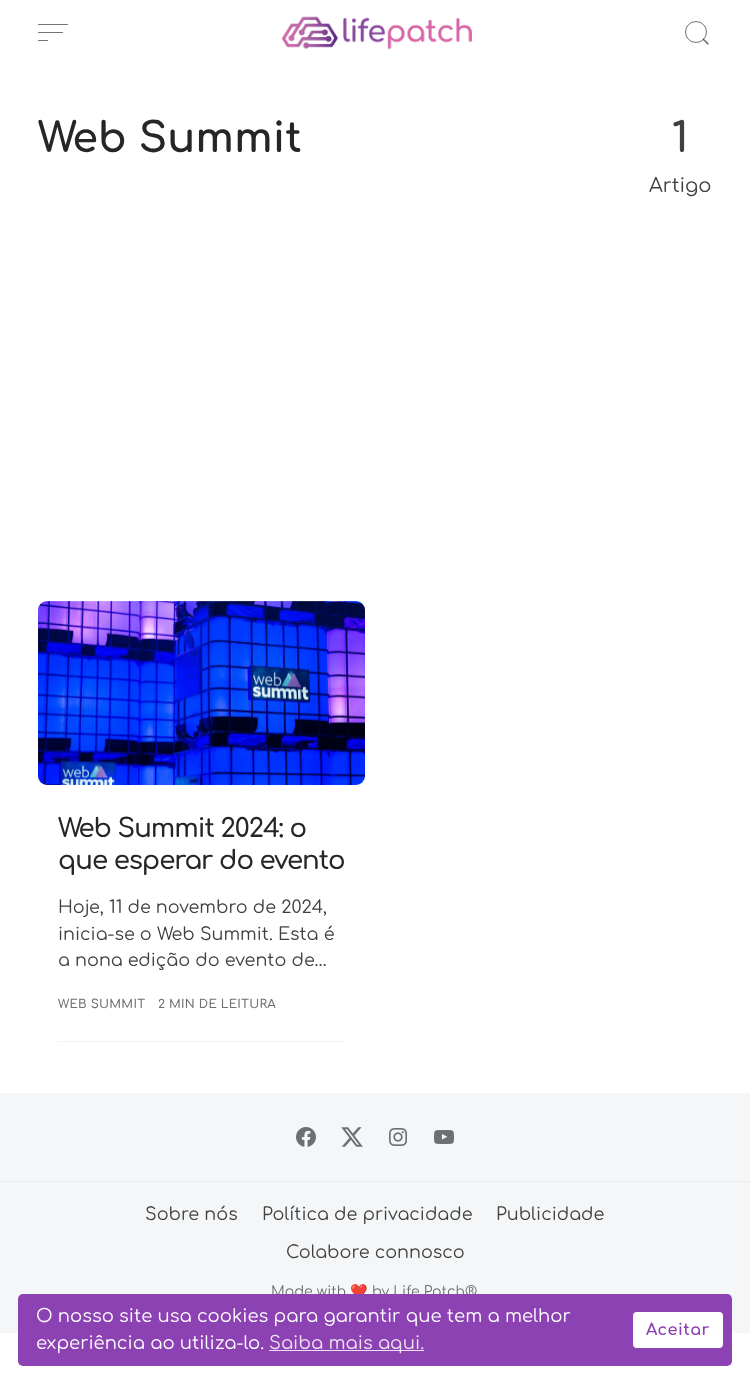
async function draw(canvas) {
	canvas.width = 750;
	canvas.height = 1384;
	const c = canvas.getContext('2d');
	c.miterLimit = 4;
	c.fontKerning = 'normal';
	async function loadImage(src) {
		const img = new Image();
		img.src = src;
		await img.decode();
		return img;
	}

	c.fillStyle = '#fff';
	c.fillRect(0, 0, 750, 1384);
	c.fillStyle = '#737373';
	c.beginPath();
	c.roundRect(38, 24, 30, 1, 0.5);
	c.fill();
	c.beginPath();
	c.roundRect(38, 32, 25, 1, 0.5);
	c.fill();
	c.beginPath();
	c.roundRect(38, 40, 10, 1, 0.5);
	c.fill();
	c.drawImage(await loadImage('img1.png'), 282, 16, 190, 34);
	c.beginPath();
	c.arc(696, 32, 10.5, 0, 2 * Math.PI);
	c.strokeStyle = '#737373';
	c.stroke();
	c.fillStyle = '#0000008c';
	c.beginPath();
	c.moveTo(704, 39);
	c.lineTo(708, 42.5);
	c.bezierCurveTo(709.5, 44.5, 708.5, 45, 707.5, 44.5);
	c.lineTo(703, 40);
	c.bezierCurveTo(702.5, 39, 703.5, 38, 704, 39);
	c.closePath();
	c.fill();
	c.font = 'bold 41.25px Comfortaa';
	c.fillStyle = '#262626';
	c.fillText('Web Summit', 38, 152);
	c.fillStyle = '#404040';
	c.fillText('1', 672, 152);
	c.font = '19.5px Comfortaa';
	c.fillText('Artigo', 649, 192);
	c.fillStyle = '#e0e0e0';
	c.beginPath();
	c.roundRect(38, 601, 327, 184, 9);
	c.fill();
	c.drawImage(await loadImage('img2.png'), 38, 601, 327, 184);
	c.letterSpacing = '-1px';
	c.font = '600 26px Comfortaa';
	c.fillStyle = '#262626';
	c.fillText('Web Summit 2024: o', 58, 837);
	c.fillText('que esperar do evento', 58, 869);
	c.letterSpacing = '0px';
	c.font = '17.6px Comfortaa';
	c.fillStyle = '#404040';
	for (const [text, x, y] of [
		['Hoje, 11 de novembro de 2024,', 58, 913],
		['inicia-se o Web Summit. Esta é', 58, 940],
		['a nona edição do evento de…', 58, 966],
	]) {
		c.fillText(text, x, y);
	}
	c.fillStyle = '#f2f2f2';
	c.fillRect(58, 1041, 287, 1);
	c.letterSpacing = '0.25px';
	c.font = '600 12px Comfortaa';
	c.fillStyle = '#6e6f70';
	c.fillText('WEB SUMMIT', 58, 1008);
	c.fillText('2 MIN DE LEITURA', 158, 1008);
	c.fillStyle = '#f4f6f8';
	c.fillRect(0, 1093, 750, 240);
	c.fillStyle = '#e8eaec';
	c.fillRect(0, 1181, 750, 1);
	c.drawImage(await loadImage('img3.png'), 296, 1127, 20, 20);
	c.drawImage(await loadImage('img4.png'), 341, 1127, 22, 20);
	c.drawImage(await loadImage('img5.png'), 389, 1128, 18, 18);
	c.drawImage(await loadImage('img6.png'), 434, 1130, 20, 14);
	c.letterSpacing = '0px';
	c.font = '17.6px Comfortaa';
	c.fillStyle = '#404040';
	for (const [text, x, y] of [
		['Sobre nós', 145, 1220],
		['Política de privacidade', 262, 1220],
		['Publicidade', 496, 1220],
		['Colabore connosco', 286, 1258],
	]) {
		c.fillText(text, x, y);
	}
	c.font = '14px Comfortaa';
	c.fillStyle = '#6e6f70';
	c.fillText('Made with', 271, 1296);
	c.font = '14px Noto Color Emoji';
	c.fillText('❤️', 350, 1296);
	c.font = '14px Comfortaa';
	c.fillText('by Life Patch®.', 372, 1296);
	c.fillStyle = '#8c42b2';
	c.beginPath();
	c.roundRect(18, 1294, 714, 72, 5);
	c.fill();
	c.font = '18px Comfortaa';
	c.fillStyle = '#fff';
	c.fillText('O nosso site usa cookies para garantir que tem a melhor', 36, 1322);
	c.fillText('experiência ao utiliza-lo.', 36, 1349);
	c.fillStyle = '#eee3f3';
	c.fillRect(269, 1350, 155, 1);
	c.fillText('Saiba mais aqui.', 269, 1349);
	c.fillStyle = '#fff';
	c.beginPath();
	c.roundRect(633, 1312, 90, 36, 4);
	c.fill();
	c.letterSpacing = '0.5px';
	c.font = 'bold 16px Comfortaa';
	c.fillStyle = '#8c42b2';
	c.fillText('Aceitar', 646, 1335);
}

draw(document.querySelector('canvas'));
